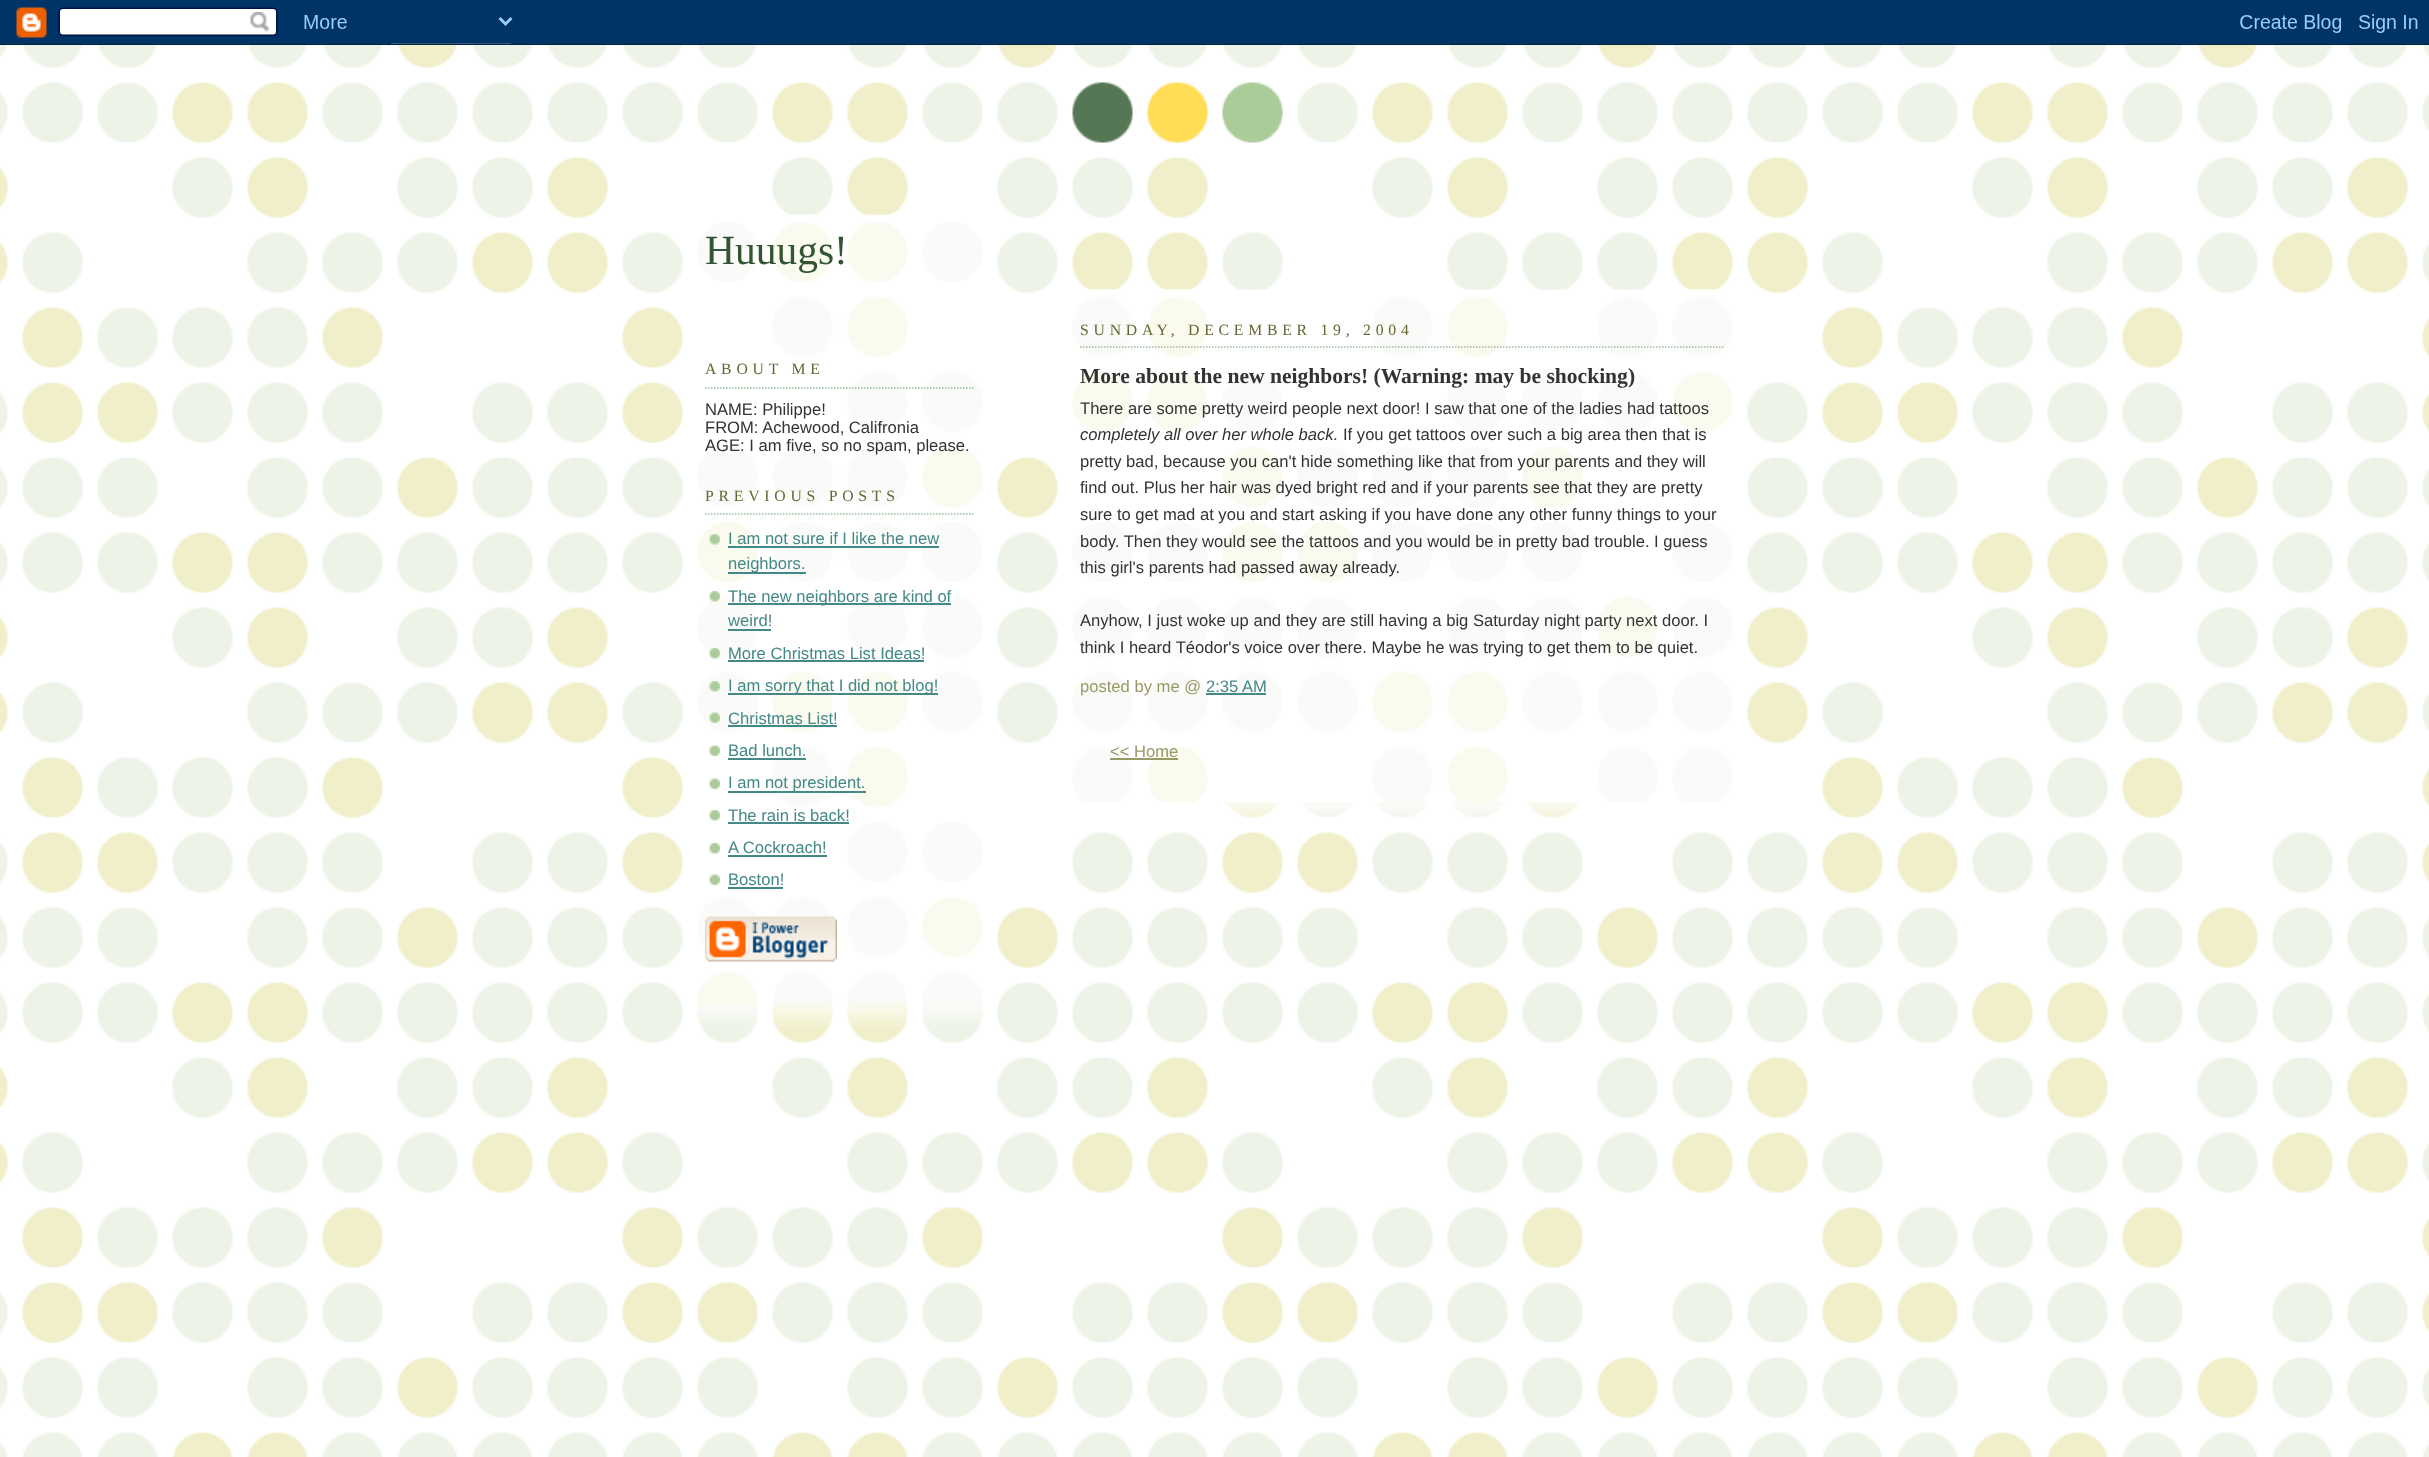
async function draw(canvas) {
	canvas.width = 2429;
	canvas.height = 1457;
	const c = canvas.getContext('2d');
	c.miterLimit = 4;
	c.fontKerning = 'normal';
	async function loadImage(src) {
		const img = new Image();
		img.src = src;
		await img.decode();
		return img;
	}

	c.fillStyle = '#fff';
	c.fillRect(0, 0, 2429, 1457);
	c.drawImage(await loadImage('img1.png'), 0, 43, 2429, 1414);
	c.drawImage(await loadImage('img2.png'), 0, 0, 2429, 45);
	c.drawImage(await loadImage('img3.png'), 1071, 82, 212, 62);
	c.drawImage(await loadImage('img4.png'), 697, 1003, 286, 25);
	c.drawImage(await loadImage('img5.png'), 697, 214, 286, 790);
	c.font = '41.5px Liberation Serif';
	c.fillStyle = '#353';
	c.fillText('Huuugs!', 705, 264);
	c.beginPath();
	c.moveTo(705, 388);
	c.lineTo(975, 388);
	c.strokeStyle = '#9b9';
	c.lineWidth = 1.5;
	c.setLineDash([1.5, 1.5]);
	c.stroke();
	c.letterSpacing = '4.75px';
	c.font = '15.75px Liberation Serif';
	c.fillStyle = '#663';
	c.fillText('ABOUT ME', 705, 374);
	c.letterSpacing = '0px';
	c.font = '16.6px Liberation Sans';
	c.fillStyle = '#333';
	for (const [text, x, y] of [
		['NAME: Philippe!', 705, 415],
		['FROM: Achewood, Califronia', 705, 433],
		['AGE: I am five, so no spam, please.', 705, 451],
	]) {
		c.fillText(text, x, y);
	}
	c.beginPath();
	c.moveTo(705, 514);
	c.lineTo(975, 514);
	c.stroke();
	c.letterSpacing = '4.75px';
	c.font = '15.75px Liberation Serif';
	c.fillStyle = '#663';
	c.fillText('PREVIOUS POSTS', 705, 501);
	c.drawImage(await loadImage('img6.png'), 709, 534, 11, 11);
	c.letterSpacing = '0px';
	c.font = '16.6px Liberation Sans';
	c.fillStyle = '#488';
	c.fillText('I am not sure if I like the new', 728, 544);
	c.fillRect(728, 546, 211, 2);
	c.fillRect(728, 572, 78, 2);
	c.fillText('neighbors.', 728, 569);
	c.drawImage(await loadImage('img7.png'), 709, 591, 11, 11);
	c.fillRect(728, 603, 223, 2);
	c.fillText('The new neighbors are kind of', 728, 602);
	c.fillText('weird!', 728, 626);
	c.fillRect(728, 629, 43, 2);
	c.drawImage(await loadImage('img8.png'), 709, 648, 11, 11);
	c.fillText('More Christmas List Ideas!', 728, 659);
	c.fillRect(728, 660, 196, 2);
	c.drawImage(await loadImage('img9.png'), 709, 681, 11, 11);
	c.fillRect(728, 693, 210, 2);
	c.fillText('I am sorry that I did not blog!', 728, 691);
	c.drawImage(await loadImage('img10.png'), 709, 712, 11, 11);
	c.fillText('Christmas List!', 728, 724);
	c.fillRect(728, 725, 109, 2);
	c.drawImage(await loadImage('img11.png'), 709, 745, 11, 11);
	c.fillText('Bad lunch.', 728, 756);
	c.fillRect(728, 758, 78, 2);
	c.drawImage(await loadImage('img11.png'), 709, 778, 11, 11);
	c.fillRect(728, 791, 138, 2);
	c.fillText('I am not president.', 728, 788);
	c.drawImage(await loadImage('img12.png'), 709, 810, 11, 11);
	c.fillText('The rain is back!', 728, 821);
	c.fillRect(728, 822, 121, 2);
	c.drawImage(await loadImage('img12.png'), 709, 843, 11, 11);
	c.fillText('A Cockroach!', 728, 853);
	c.fillRect(728, 855, 99, 2);
	c.drawImage(await loadImage('img11.png'), 709, 874, 11, 11);
	c.fillText('Boston!', 728, 885);
	c.fillRect(728, 887, 55, 2);
	c.drawImage(await loadImage('img13.png'), 705, 916, 132, 46);
	c.drawImage(await loadImage('img14.png'), 1226, 802, 353, 16);
	c.drawImage(await loadImage('img15.png'), 1072, 289, 661, 514);
	c.beginPath();
	c.moveTo(1080, 347);
	c.lineTo(1725, 347);
	c.stroke();
	c.letterSpacing = '4.75px';
	c.font = '15.75px Liberation Serif';
	c.fillStyle = '#663';
	c.fillText('SUNDAY, DECEMBER 19, 2004', 1080, 335);
	c.letterSpacing = '0px';
	c.font = 'bold 21.55px Liberation Serif';
	c.fillStyle = '#333';
	c.fillText('More about the new neighbors! (Warning: may be shocking)', 1080, 383);
	c.font = '16.6px Liberation Sans';
	c.fillText('There are some pretty weird people next door! I saw that one of the ladies had tattoos', 1080, 414);
	c.font = 'italic 16.6px Liberation Sans';
	c.fillText('completely all over her whole back.', 1080, 440);
	c.font = '16.6px Liberation Sans';
	for (const [text, x, y] of [
		['If you get tattoos over such a big area then that is', 1343, 440],
		['pretty bad, because you can\'t hide something like that from your parents and they will', 1080, 467],
		['find out. Plus her hair was dyed bright red and if your parents see that they are pretty', 1080, 493],
		['sure to get mad at you and start asking if you have done any other funny things to your', 1080, 520],
		['body. Then they would see the tattoos and you would be in pretty bad trouble. I guess', 1080, 547],
		['this girl\'s parents had passed away already.', 1080, 573],
		['Anyhow, I just woke up and they are still having a big Saturday night party next door. I', 1080, 626],
		['think I heard Téodor\'s voice over there. Maybe he was trying to get them to be quiet.', 1080, 653],
	]) {
		c.fillText(text, x, y);
	}
	c.fillStyle = '#996';
	c.fillText('posted by me @', 1080, 692);
	c.fillStyle = '#488';
	c.fillText('2:35 AM', 1206, 692);
	c.fillRect(1206, 693, 60, 2);
	c.fillStyle = '#996';
	c.fillText('<< Home', 1110, 757);
	c.fillRect(1110, 758, 68, 2);
}

draw(document.querySelector('canvas'));
